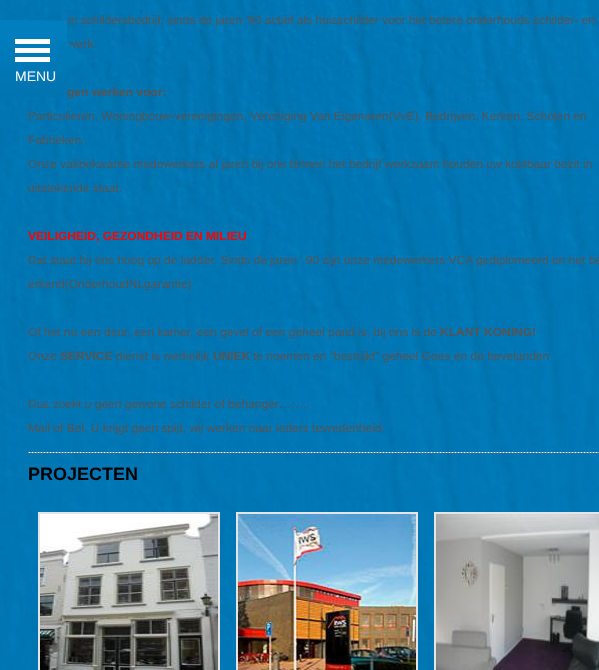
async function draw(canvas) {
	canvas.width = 599;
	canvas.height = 670;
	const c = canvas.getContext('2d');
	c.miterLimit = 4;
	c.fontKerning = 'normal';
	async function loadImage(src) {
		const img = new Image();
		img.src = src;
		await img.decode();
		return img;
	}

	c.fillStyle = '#fff';
	c.fillRect(0, 0, 599, 670);
	c.drawImage(await loadImage('img1.png'), 0, 0, 599, 670);
	c.font = '12px Liberation Sans';
	c.fillStyle = '#545454';
	c.fillText('in schildersbedrijf, sinds de jaren ‘80 actief als huisschilder voor het betere onderhouds schilder- en', 68, 24);
	c.fillText('werk.', 68, 48);
	c.font = 'bold 12px Liberation Sans';
	c.fillText('gen werken voor:', 67, 96);
	c.font = '12px Liberation Sans';
	for (const [text, x, y] of [
		['Particulieren, Woningbouw-verenigingen, Vereniging Van Eigenaren(VvE), Bedrijven, Kerken, Scholen en', 28, 120],
		['Fabrieken.', 28, 144],
		['Onze vakbekwame medewerkers al jaren bij ons binnen het bedrijf werkzaam houden uw kostbaar bezit in', 28, 168],
		['uitstekende staat.', 28, 192],
	]) {
		c.fillText(text, x, y);
	}
	c.font = 'bold 12px Liberation Sans';
	c.fillStyle = '#f00';
	c.fillText('VEILIGHEID, GEZONDHEID EN MILIEU', 28, 240);
	c.font = '12px Liberation Sans';
	c.fillStyle = '#545454';
	for (const [text, x, y] of [
		['Dat staat bij ons hoog op de ladder. Sinds de jaren \' 90 zijn onze medewerkers VCA gediplomeerd en het be', 28, 264],
		['erkend(OnderhoudNLgarantie)', 28, 288],
		['Of het nu een deur, een kamer, een gevel of een geheel pand is, bij ons is de', 28, 336],
	]) {
		c.fillText(text, x, y);
	}
	c.font = 'bold 12px Liberation Sans';
	c.fillText('KLANT KONING!', 440, 336);
	c.font = '12px Liberation Sans';
	c.fillText('Onze', 28, 360);
	c.font = 'bold 12px Liberation Sans';
	c.fillText('SERVICE', 60, 360);
	c.font = '12px Liberation Sans';
	c.fillText('dienst is werkelijk', 116, 360);
	c.font = 'bold 12px Liberation Sans';
	c.fillText('UNIEK', 213, 360);
	c.font = '12px Liberation Sans';
	for (const [text, x, y] of [
		['te noemen en “bestrijkt” geheel Goes en de bevelanden', 253, 360],
		['Dus zoekt u geen gewone schilder of behanger……..', 28, 408],
		['Mail of Bel, U krijgt geen spijt, wij werken naar ieders tevredenheid.', 28, 432],
	]) {
		c.fillText(text, x, y);
	}
	c.drawImage(await loadImage('img2.png'), 28, 452, 571, 1);
	c.font = 'bold 18px Liberation Sans';
	c.fillStyle = '#000';
	c.fillText('PROJECTEN', 28, 480);
	c.strokeStyle = '#e5e5e5';
	c.lineWidth = 2;
	c.strokeRect(39, 513, 180, 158);
	c.drawImage(await loadImage('img3.png'), 40, 514, 178, 156);
	c.strokeRect(237, 513, 180, 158);
	c.drawImage(await loadImage('img4.png'), 238, 514, 178, 156);
	c.strokeRect(435, 513, 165, 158);
	c.drawImage(await loadImage('img5.png'), 436, 514, 163, 156);
	c.drawImage(await loadImage('img6.png'), 0, 20, 84, 77);
	for (const [x, y, w, h, color] of [
		[15, 39, 35, 5, '#fff'],
		[15, 48, 35, 5, '#fff'],
		[15, 57, 35, 5, '#fff'],
	]) {
		c.fillStyle = color;
		c.fillRect(x, y, w, h);
	}
	c.font = '14px Liberation Sans';
	c.fillText('MENU', 15, 81);
}

draw(document.querySelector('canvas'));
